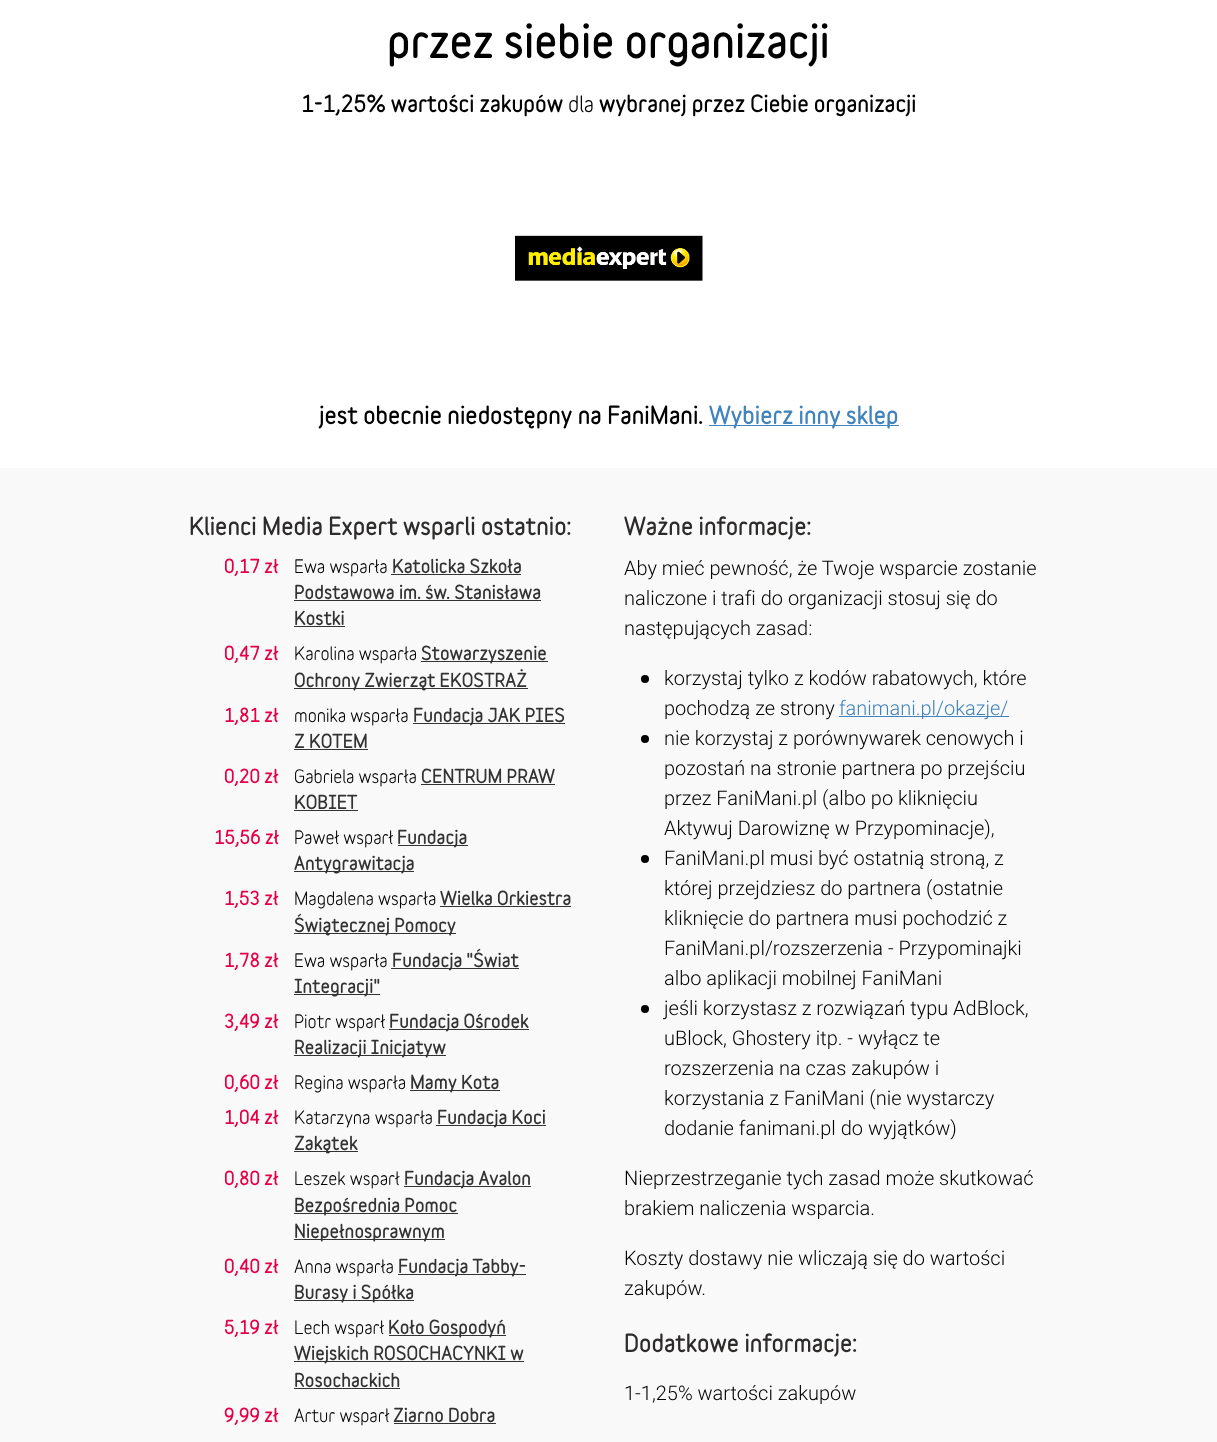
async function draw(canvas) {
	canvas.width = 1217;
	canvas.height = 1442;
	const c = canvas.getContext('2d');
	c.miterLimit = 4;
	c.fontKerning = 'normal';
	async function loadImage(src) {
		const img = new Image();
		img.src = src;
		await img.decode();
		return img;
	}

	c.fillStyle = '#fff';
	c.fillRect(0, 0, 1217, 1442);
	c.font = '900 42.5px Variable';
	c.fillStyle = '#000';
	c.fillText('przez siebie organizacji', 387, 58);
	c.font = '900 21.25px Variable';
	c.fillText('1-1,25% wartości zakupów', 301, 112);
	c.font = 'bold 21.25px Variable';
	c.fillText('dla', 568, 112);
	c.font = '900 21.25px Variable';
	c.fillText('wybranej przez Ciebie organizacji', 599, 112);
	c.drawImage(await loadImage('img1.png'), 515, 235, 188, 46);
	c.font = '900 22.5px Variable';
	c.fillText('jest obecnie niedostępny na FaniMani.', 319, 424);
	c.fillStyle = '#4183bc';
	c.fillRect(709, 425, 190, 1);
	c.fillText('Wybierz inny sklep', 709, 424);
	c.fillStyle = '#f9f9f9';
	c.fillRect(0, 468, 1217, 974);
	c.fillStyle = '#2d2a2a';
	c.fillText('Klienci Media Expert wsparli ostatnio:', 189, 535);
	c.font = '900 17.5px Variable';
	c.fillStyle = '#e40047';
	c.fillText('0,17 zł', 224, 573);
	c.font = 'bold 17.5px Variable';
	c.fillStyle = '#000';
	c.fillText('Ewa wsparła', 294, 573);
	c.font = '900 17.5px Variable';
	c.fillStyle = '#333';
	c.fillText('Katolicka Szkoła', 392, 573);
	c.fillRect(391, 574, 130, 1);
	c.fillText('Podstawowa im. św. Stanisława', 294, 599);
	c.fillRect(294, 600, 247, 1);
	c.fillText('Kostki', 294, 625);
	c.fillRect(294, 626, 51, 1);
	c.fillStyle = '#e40047';
	c.fillText('0,47 zł', 224, 660);
	c.font = 'bold 17.5px Variable';
	c.fillStyle = '#000';
	c.fillText('Karolina wsparła', 294, 660);
	c.fillStyle = '#333';
	c.fillRect(421, 661, 127, 1);
	c.font = '900 17.5px Variable';
	c.fillText('Stowarzyszenie', 421, 660);
	c.fillRect(294, 688, 234, 1);
	c.fillText('Ochrony Zwierząt EKOSTRAŻ', 294, 687);
	c.fillStyle = '#e40047';
	c.fillText('1,81 zł', 224, 722);
	c.font = 'bold 17.5px Variable';
	c.fillStyle = '#000';
	c.fillText('monika wsparła', 294, 722);
	c.fillStyle = '#333';
	c.fillRect(413, 723, 152, 1);
	c.font = '900 17.5px Variable';
	c.fillText('Fundacja JAK PIES', 413, 722);
	c.fillText('Z KOTEM', 294, 748);
	c.fillRect(294, 749, 74, 1);
	c.fillStyle = '#e40047';
	c.fillText('0,20 zł', 224, 783);
	c.font = 'bold 17.5px Variable';
	c.fillStyle = '#000';
	c.fillText('Gabriela wsparła', 294, 783);
	c.font = '900 17.5px Variable';
	c.fillStyle = '#333';
	c.fillText('CENTRUM PRAW', 421, 783);
	c.fillRect(421, 784, 134, 1);
	c.fillText('KOBIET', 294, 809);
	c.fillRect(294, 810, 64, 1);
	c.fillStyle = '#e40047';
	c.fillText('15,56 zł', 214, 844);
	c.font = 'bold 17.5px Variable';
	c.fillStyle = '#000';
	c.fillText('Paweł wsparł', 294, 844);
	c.fillStyle = '#333';
	c.fillRect(398, 845, 70, 1);
	c.font = '900 17.5px Variable';
	c.fillText('Fundacja', 397, 844);
	c.fillRect(294, 871, 120, 1);
	c.fillText('Antygrawitacja', 294, 870);
	c.fillStyle = '#e40047';
	c.fillText('1,53 zł', 224, 905);
	c.font = 'bold 17.5px Variable';
	c.fillStyle = '#000';
	c.fillText('Magdalena wsparła', 294, 905);
	c.font = '900 17.5px Variable';
	c.fillStyle = '#333';
	c.fillText('Wielka Orkiestra', 440, 905);
	c.fillRect(440, 906, 131, 1);
	c.fillRect(294, 933, 162, 1);
	c.fillText('Świątecznej Pomocy', 294, 932);
	c.fillStyle = '#e40047';
	c.fillText('1,78 zł', 224, 967);
	c.font = 'bold 17.5px Variable';
	c.fillStyle = '#000';
	c.fillText('Ewa wsparła', 294, 967);
	c.fillStyle = '#333';
	c.fillRect(391, 968, 128, 1);
	c.font = '900 17.5px Variable';
	c.fillText('Fundacja "Świat', 392, 967);
	c.fillRect(294, 994, 86, 1);
	c.fillText('Integracji"', 294, 993);
	c.fillStyle = '#e40047';
	c.fillText('3,49 zł', 224, 1028);
	c.font = 'bold 17.5px Variable';
	c.fillStyle = '#000';
	c.fillText('Piotr wsparł', 294, 1028);
	c.fillStyle = '#333';
	c.fillRect(389, 1029, 140, 1);
	c.font = '900 17.5px Variable';
	c.fillText('Fundacja Ośrodek', 389, 1028);
	c.fillRect(294, 1055, 152, 1);
	c.fillText('Realizacji Inicjatyw', 294, 1054);
	c.fillStyle = '#e40047';
	c.fillText('0,60 zł', 224, 1089);
	c.font = 'bold 17.5px Variable';
	c.fillStyle = '#000';
	c.fillText('Regina wsparła', 294, 1089);
	c.fillStyle = '#333';
	c.fillRect(410, 1090, 90, 1);
	c.font = '900 17.5px Variable';
	c.fillText('Mamy Kota', 410, 1089);
	c.fillStyle = '#e40047';
	c.fillText('1,04 zł', 224, 1124);
	c.font = 'bold 17.5px Variable';
	c.fillStyle = '#000';
	c.fillText('Katarzyna wsparła', 294, 1124);
	c.fillStyle = '#333';
	c.fillRect(436, 1125, 110, 1);
	c.font = '900 17.5px Variable';
	c.fillText('Fundacja Koci', 437, 1124);
	c.fillRect(294, 1151, 64, 1);
	c.fillText('Zakątek', 294, 1150);
	c.fillStyle = '#e40047';
	c.fillText('0,80 zł', 224, 1185);
	c.font = 'bold 17.5px Variable';
	c.fillStyle = '#000';
	c.fillText('Leszek wsparł', 294, 1185);
	c.fillStyle = '#333';
	c.fillRect(404, 1186, 127, 1);
	c.font = '900 17.5px Variable';
	c.fillText('Fundacja Avalon', 404, 1185);
	c.fillRect(294, 1213, 164, 1);
	c.fillText('Bezpośrednia Pomoc', 294, 1212);
	c.fillRect(294, 1239, 151, 1);
	c.fillText('Niepełnosprawnym', 294, 1238);
	c.fillStyle = '#e40047';
	c.fillText('0,40 zł', 224, 1273);
	c.font = 'bold 17.5px Variable';
	c.fillStyle = '#000';
	c.fillText('Anna wsparła', 294, 1273);
	c.fillStyle = '#333';
	c.fillRect(398, 1274, 128, 1);
	c.font = '900 17.5px Variable';
	c.fillText('Fundacja Tabby-', 398, 1273);
	c.fillRect(294, 1300, 120, 1);
	c.fillText('Burasy i Spółka', 294, 1299);
	c.fillStyle = '#e40047';
	c.fillText('5,19 zł', 224, 1334);
	c.font = 'bold 17.5px Variable';
	c.fillStyle = '#000';
	c.fillText('Lech wsparł', 294, 1334);
	c.fillStyle = '#333';
	c.fillRect(389, 1335, 117, 1);
	c.font = '900 17.5px Variable';
	c.fillText('Koło Gospodyń', 388, 1334);
	c.fillRect(294, 1361, 230, 1);
	c.fillText('Wiejskich ROSOCHACYNKI w', 294, 1360);
	c.fillText('Rosochackich', 294, 1387);
	c.fillRect(294, 1388, 106, 1);
	c.fillStyle = '#e40047';
	c.fillText('9,99 zł', 224, 1422);
	c.font = 'bold 17.5px Variable';
	c.fillStyle = '#000';
	c.fillText('Artur wsparł', 294, 1422);
	c.font = '900 17.5px Variable';
	c.fillStyle = '#333';
	c.fillText('Ziarno Dobra', 393, 1422);
	c.fillRect(394, 1423, 102, 1);
	c.font = '900 22.5px Variable';
	c.fillStyle = '#2d2a2a';
	c.fillText('Ważne informacje:', 624, 535);
	c.font = '300 20px Roboto';
	c.fillStyle = '#000';
	for (const [text, x, y] of [
		['Aby mieć pewność, że Twoje wsparcie zostanie', 624, 575],
		['naliczone i trafi do organizacji stosuj się do', 624, 605],
		['następujących zasad:', 624, 635],
	]) {
		c.fillText(text, x, y);
	}
	c.beginPath();
	c.arc(645, 679, 4, 0, 2 * Math.PI);
	c.fill();
	c.fillText('korzystaj tylko z kodów rabatowych, które', 664, 685);
	c.fillText('pochodzą ze strony', 664, 715);
	c.fillStyle = '#4183bc';
	c.fillRect(839, 716, 170, 1);
	c.fillText('fanimani.pl/okazje/', 839, 715);
	c.fillStyle = '#000';
	c.beginPath();
	c.arc(645, 739, 4, 0, 2 * Math.PI);
	c.fill();
	for (const [text, x, y] of [
		['nie korzystaj z porównywarek cenowych i', 664, 745],
		['pozostań na stronie partnera po przejściu', 664, 775],
		['przez FaniMani.pl (albo po kliknięciu', 664, 805],
		['Aktywuj Darowiznę w Przypominacje),', 664, 835],
	]) {
		c.fillText(text, x, y);
	}
	c.beginPath();
	c.arc(645, 859, 4, 0, 2 * Math.PI);
	c.fill();
	for (const [text, x, y] of [
		['FaniMani.pl musi być ostatnią stroną, z', 664, 865],
		['której przejdziesz do partnera (ostatnie', 664, 895],
		['kliknięcie do partnera musi pochodzić z', 664, 925],
		['FaniMani.pl/rozszerzenia - Przypominajki', 664, 955],
		['albo aplikacji mobilnej FaniMani', 664, 985],
	]) {
		c.fillText(text, x, y);
	}
	c.beginPath();
	c.arc(645, 1009, 4, 0, 2 * Math.PI);
	c.fill();
	for (const [text, x, y] of [
		['jeśli korzystasz z rozwiązań typu AdBlock,', 664, 1015],
		['uBlock, Ghostery itp. - wyłącz te', 664, 1045],
		['rozszerzenia na czas zakupów i', 664, 1075],
		['korzystania z FaniMani (nie wystarczy', 664, 1105],
		['dodanie fanimani.pl do wyjątków)', 664, 1135],
		['Nieprzestrzeganie tych zasad może skutkować', 624, 1185],
		['brakiem naliczenia wsparcia.', 624, 1215],
		['Koszty dostawy nie wliczają się do wartości', 624, 1265],
		['zakupów.', 624, 1295],
	]) {
		c.fillText(text, x, y);
	}
	c.font = '900 22.5px Variable';
	c.fillStyle = '#2d2a2a';
	c.fillText('Dodatkowe informacje:', 624, 1352);
	c.font = '300 20px Roboto';
	c.fillStyle = '#000';
	c.fillText('1-1,25% wartości zakupów', 624, 1400);
}

draw(document.querySelector('canvas'));
